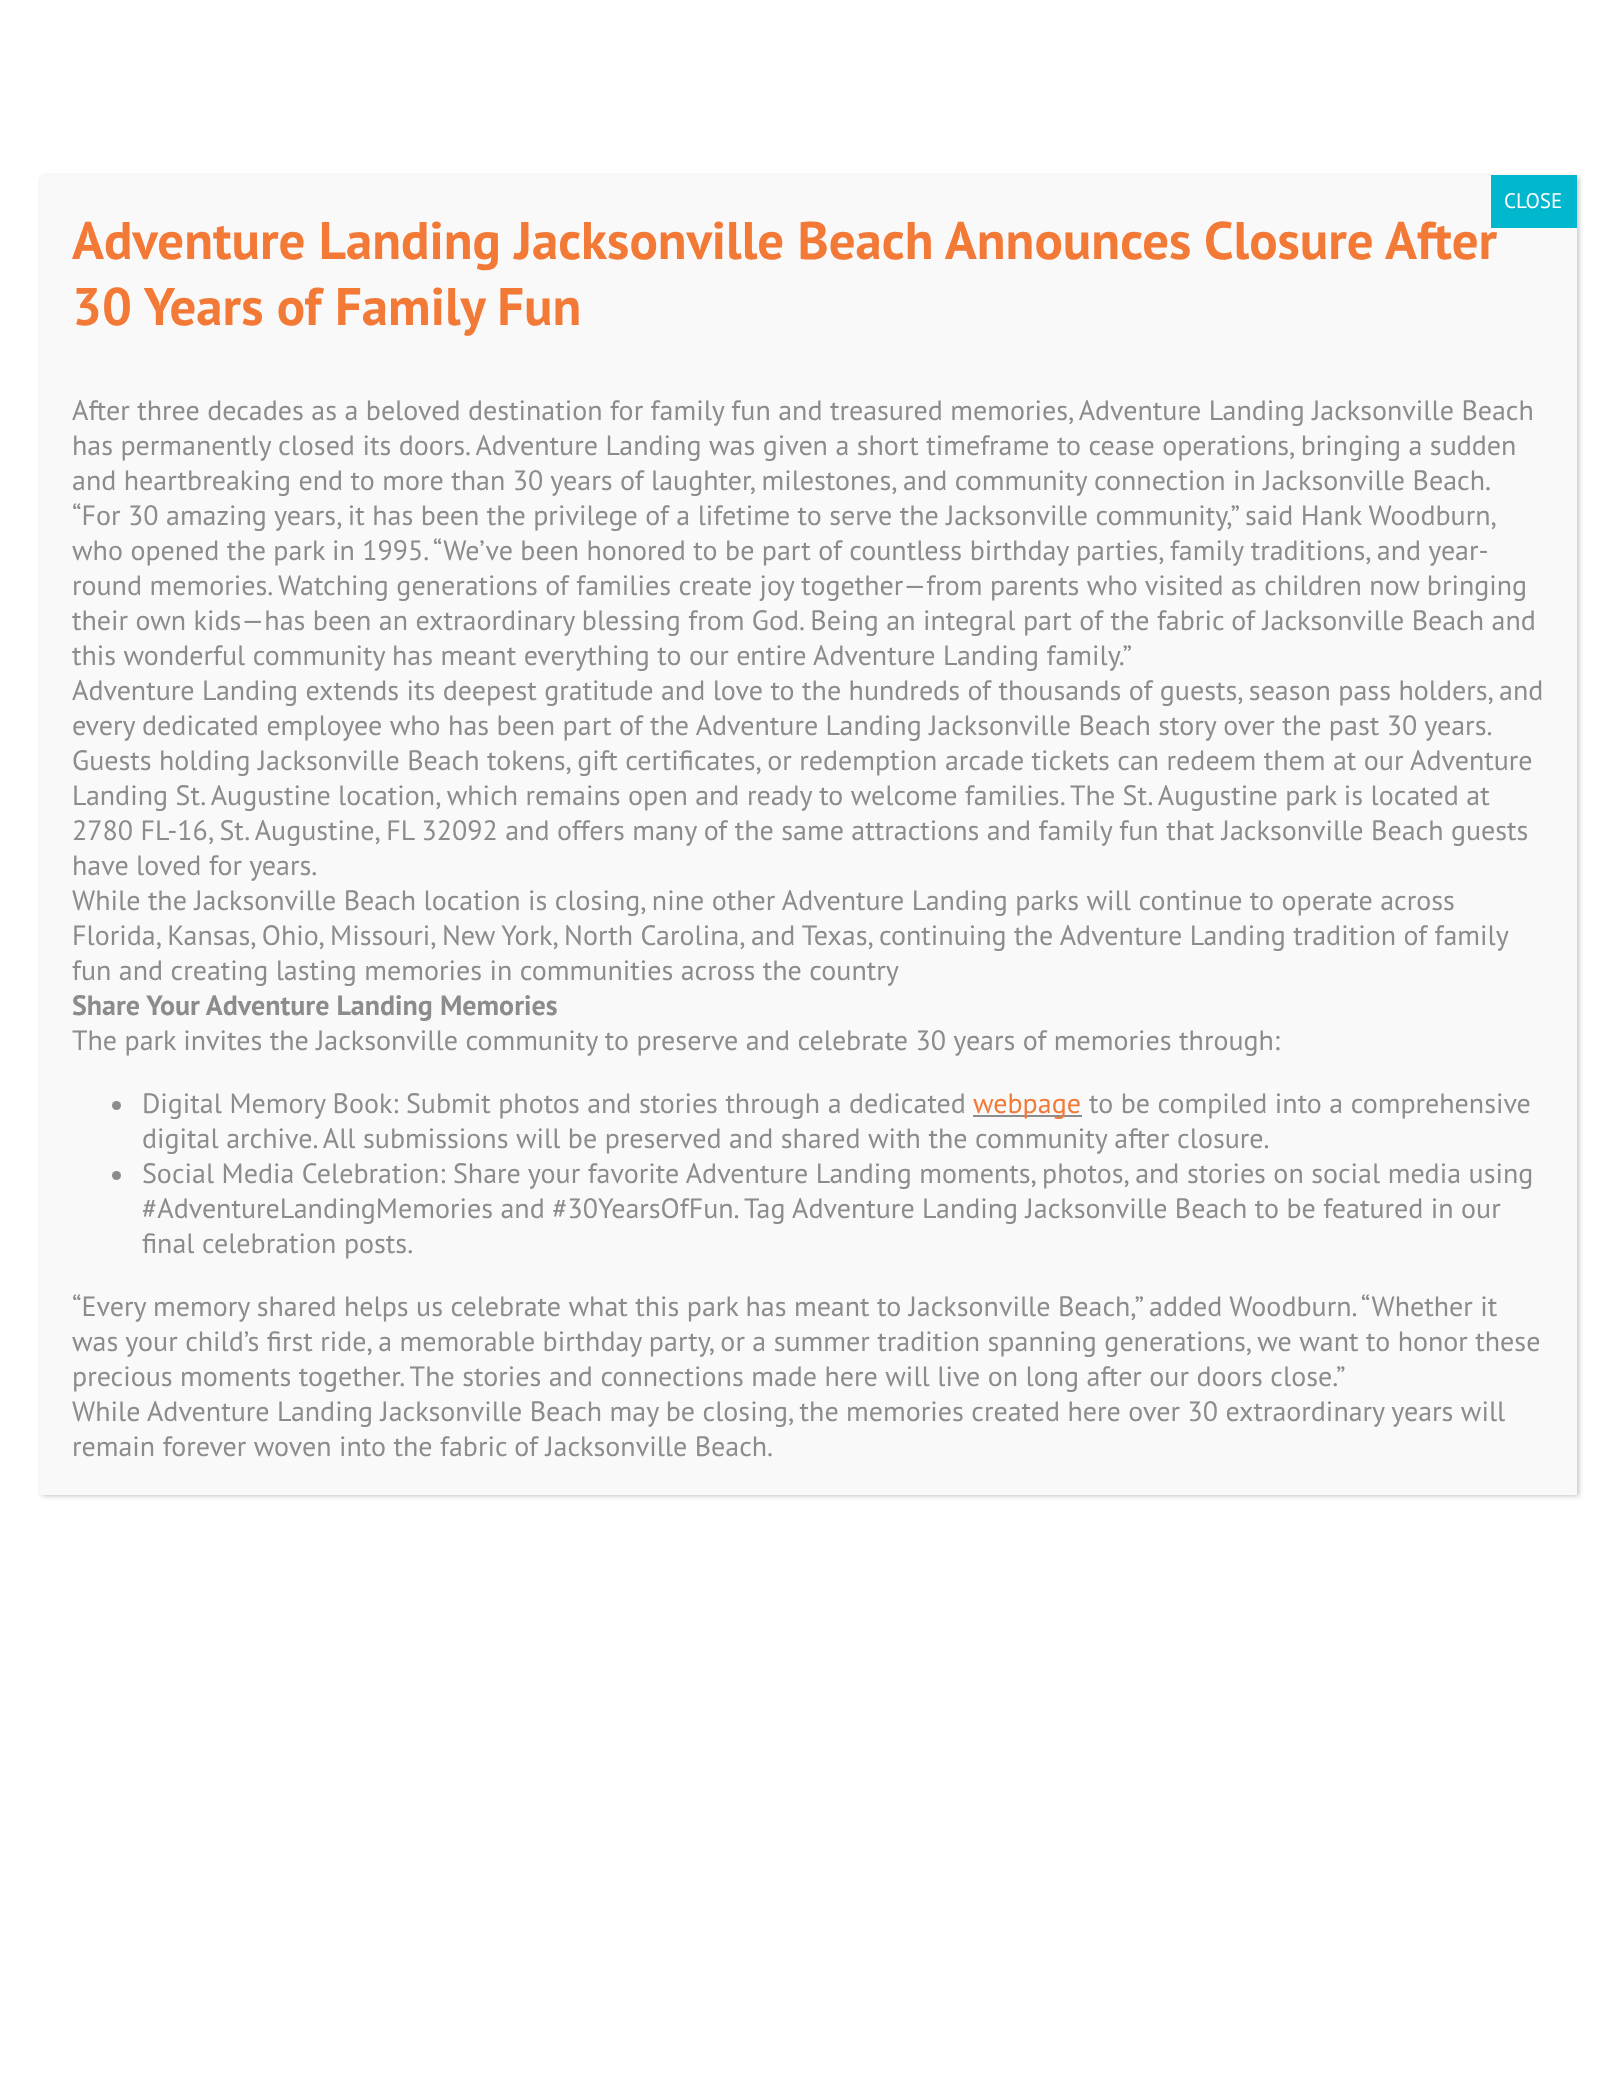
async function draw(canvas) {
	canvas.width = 1617;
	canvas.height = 2090;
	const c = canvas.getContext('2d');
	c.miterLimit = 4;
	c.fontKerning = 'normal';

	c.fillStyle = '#fff';
	c.fillRect(0, 0, 1617, 2090);
	c.fillStyle = '#0202023b';
	c.filter = 'blur(2.5px)';
	c.beginPath();
	c.rect(42, 177, 1537, 1319);
	c.fill();
	c.filter = 'none';
	c.fillStyle = '#f9f9f9';
	c.fillRect(40, 175, 1537, 1320);
	c.font = 'bold 52.9px PT Sans';
	c.fillStyle = '#f37936';
	c.fillText('Adventure Landing Jacksonville Beach Announces Closure After', 72, 259);
	c.fillStyle = '#00b7cd';
	c.fillRect(1491, 175, 86, 53);
	c.font = '21px PT Sans';
	c.fillStyle = '#fff';
	c.fillText('CLOSE', 1504, 208);
	c.font = 'bold 52.9px PT Sans';
	c.fillStyle = '#f37936';
	c.fillText('30 Years of Family Fun', 72, 325);
	c.font = '28px PT Sans';
	c.fillStyle = '#8c8c8c';
	for (const [text, x, y] of [
		['After three decades as a beloved destination for family fun and treasured memories, Adventure Landing Jacksonville Beach', 72, 420],
		['has permanently closed its doors. Adventure Landing was given a short timeframe to cease operations, bringing a sudden', 72, 455],
		['and heartbreaking end to more than 30 years of laughter, milestones, and community connection in Jacksonville Beach.', 72, 490],
		['“For 30 amazing years, it has been the privilege of a lifetime to serve the Jacksonville community,” said Hank Woodburn,', 72, 525],
		['who opened the park in 1995. “We’ve been honored to be part of countless birthday parties, family traditions, and year-', 72, 560],
		['round memories. Watching generations of families create joy together—from parents who visited as children now bringing', 72, 595],
		['their own kids—has been an extraordinary blessing from God. Being an integral part of the fabric of Jacksonville Beach and', 72, 630],
		['this wonderful community has meant everything to our entire Adventure Landing family.”', 72, 665],
		['Adventure Landing extends its deepest gratitude and love to the hundreds of thousands of guests, season pass holders, and', 72, 700],
		['every dedicated employee who has been part of the Adventure Landing Jacksonville Beach story over the past 30 years.', 72, 735],
		['Guests holding Jacksonville Beach tokens, gift certificates, or redemption arcade tickets can redeem them at our Adventure', 72, 770],
		['Landing St. Augustine location, which remains open and ready to welcome families. The St. Augustine park is located at', 72, 805],
		['2780 FL-16, St. Augustine, FL 32092 and offers many of the same attractions and family fun that Jacksonville Beach guests', 72, 840],
		['have loved for years.', 72, 875],
		['While the Jacksonville Beach location is closing, nine other Adventure Landing parks will continue to operate across', 72, 910],
		['Florida, Kansas, Ohio, Missouri, New York, North Carolina, and Texas, continuing the Adventure Landing tradition of family', 72, 945],
		['fun and creating lasting memories in communities across the country', 72, 980],
	]) {
		c.fillText(text, x, y);
	}
	c.font = 'bold 28px PT Sans';
	c.fillText('Share Your Adventure Landing Memories', 72, 1015);
	c.font = '28px PT Sans';
	c.fillText('The park invites the Jacksonville community to preserve and celebrate 30 years of memories through:', 72, 1050);
	c.beginPath();
	c.arc(116.5, 1105.5, 4.5, 0, 2 * Math.PI);
	c.fill();
	c.fillText('Digital Memory Book: Submit photos and stories through a dedicated', 142, 1113);
	c.fillRect(973, 1115, 109, 2);
	c.fillStyle = '#f37936';
	c.fillText('webpage', 973, 1113);
	c.fillStyle = '#8c8c8c';
	c.fillText('to be compiled into a comprehensive', 1089, 1113);
	c.fillText('digital archive. All submissions will be preserved and shared with the community after closure.', 142, 1148);
	c.beginPath();
	c.arc(116.5, 1175.5, 4.5, 0, 2 * Math.PI);
	c.fill();
	for (const [text, x, y] of [
		['Social Media Celebration: Share your favorite Adventure Landing moments, photos, and stories on social media using', 142, 1183],
		['#AdventureLandingMemories and #30YearsOfFun. Tag Adventure Landing Jacksonville Beach to be featured in our', 142, 1218],
		['final celebration posts.', 142, 1253],
		['“Every memory shared helps us celebrate what this park has meant to Jacksonville Beach,” added Woodburn. “Whether it', 72, 1316],
		['was your child’s first ride, a memorable birthday party, or a summer tradition spanning generations, we want to honor these', 72, 1351],
		['precious moments together. The stories and connections made here will live on long after our doors close.”', 72, 1386],
		['While Adventure Landing Jacksonville Beach may be closing, the memories created here over 30 extraordinary years will', 72, 1421],
		['remain forever woven into the fabric of Jacksonville Beach.', 72, 1456],
	]) {
		c.fillText(text, x, y);
	}
}

draw(document.querySelector('canvas'));
